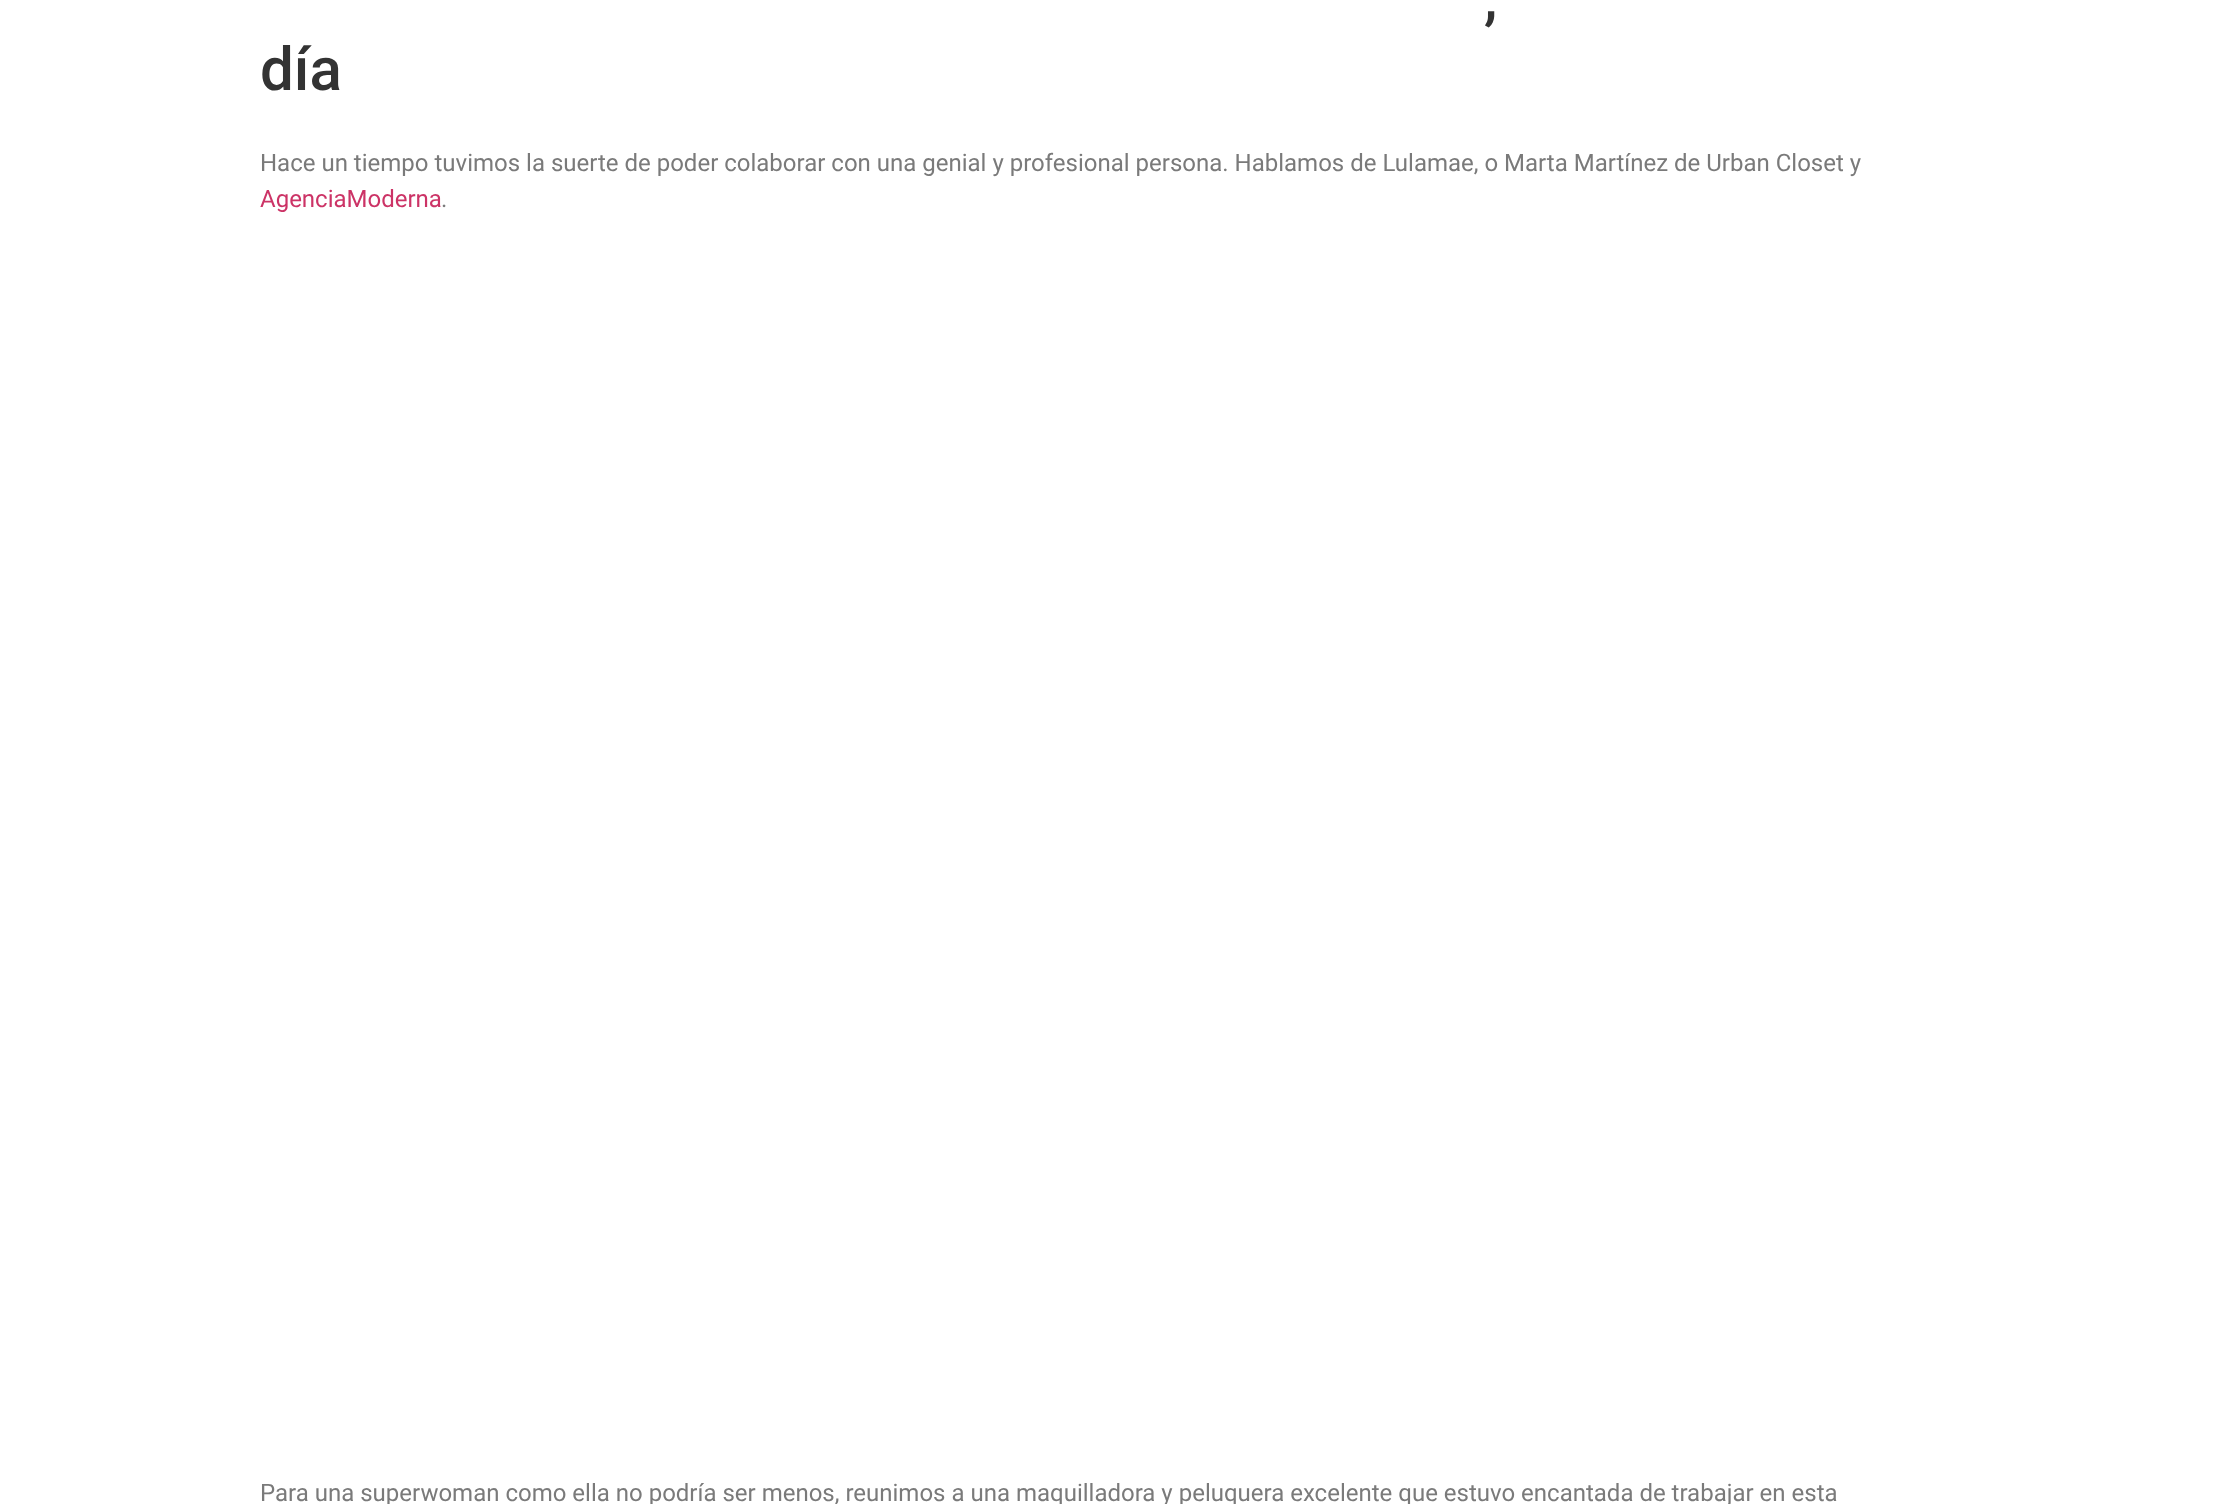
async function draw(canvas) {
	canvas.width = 2229;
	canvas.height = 1504;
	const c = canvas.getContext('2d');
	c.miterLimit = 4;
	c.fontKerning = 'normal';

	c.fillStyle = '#fff';
	c.fillRect(0, 0, 2229, 1504);
	c.font = '500 60px Roboto';
	c.fillStyle = '#333';
	c.fillText(',', 1484, 18);
	c.fillText('día', 260, 90);
	c.font = '24px Roboto';
	c.fillStyle = '#7a7a7a';
	c.fillText('Hace un tiempo tuvimos la suerte de poder colaborar con una genial y profesional persona. Hablamos de Lulamae, o Marta Martínez de Urban Closet y', 260, 171);
	c.fillStyle = '#c36';
	c.fillText('AgenciaModerna', 260, 207);
	c.fillStyle = '#7a7a7a';
	c.fillText('.', 441, 207);
	c.fillText('Para una superwoman como ella no podría ser menos, reunimos a una maquilladora y peluquera excelente que estuvo encantada de trabajar en esta', 260, 1501);
}

draw(document.querySelector('canvas'));
